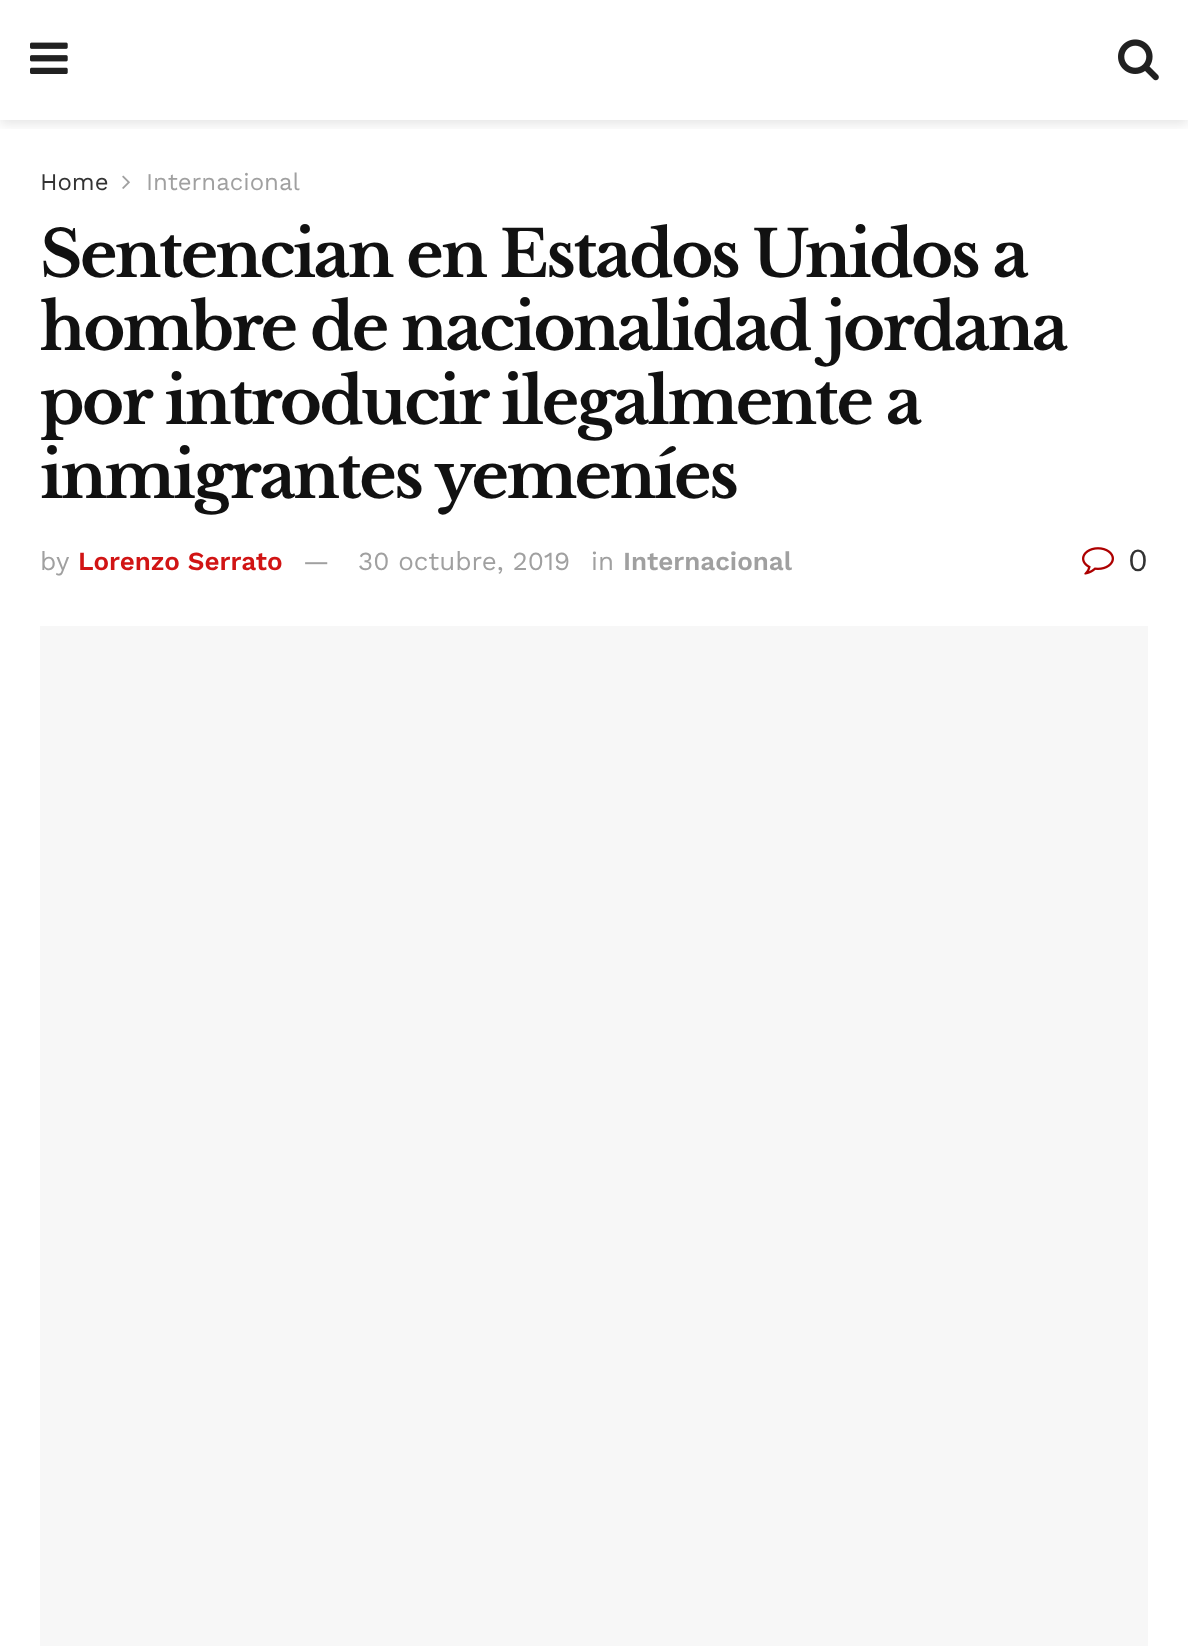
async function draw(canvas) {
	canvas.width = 1188;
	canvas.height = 1646;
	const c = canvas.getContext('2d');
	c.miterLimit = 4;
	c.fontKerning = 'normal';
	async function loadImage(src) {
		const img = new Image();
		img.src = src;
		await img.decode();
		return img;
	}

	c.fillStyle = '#fff';
	c.fillRect(0, 0, 1188, 1646);
	c.save();
	c.beginPath();
	c.rect(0, 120, 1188, 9);
	c.clip();
	c.fillStyle = '#0000001a';
	c.filter = 'blur(6px)';
	c.beginPath();
	c.rect(0, 4, 1188, 120);
	c.fill();
	c.filter = 'none';
	c.restore();
	c.drawImage(await loadImage('img1.png'), 30, 42, 38, 32);
	c.drawImage(await loadImage('img2.png'), 1118, 39, 41, 42);
	c.font = '24px Work Sans';
	c.fillStyle = '#333';
	c.fillText('Home', 40, 190);
	c.drawImage(await loadImage('img3.png'), 122, 175, 8, 14);
	c.fillStyle = '#a0a0a0';
	c.fillText('Internacional', 146, 190);
	c.letterSpacing = '-2.55px';
	c.font = 'bold 64px Libre Baskerville';
	c.fillStyle = '#111';
	for (const [text, x, y] of [
		['Sentencian en Estados Unidos a', 40, 277],
		['hombre de nacionalidad jordana', 40, 350],
		['por introducir ilegalmente a', 40, 424],
		['inmigrantes yemeníes', 40, 498],
	]) {
		c.fillText(text, x, y);
	}
	c.letterSpacing = '0px';
	c.font = '26px Work Sans';
	c.fillStyle = '#a0a0a0';
	c.fillText('by', 40, 570);
	c.font = '600 26px Work Sans';
	c.fillStyle = '#d11414';
	c.fillText('Lorenzo Serrato', 78, 570);
	c.font = '26px Work Sans';
	c.fillStyle = '#a0a0a0';
	for (const [text, x, y] of [
		['—', 303, 570],
		['30 octubre, 2019', 358, 570],
		['in', 591, 570],
	]) {
		c.fillText(text, x, y);
	}
	c.font = '600 26px Work Sans';
	c.fillText('Internacional', 623, 570);
	c.drawImage(await loadImage('img4.png'), 1082, 547, 32, 28);
	c.font = '32px Work Sans';
	c.fillStyle = '#333';
	c.fillText('0', 1128, 571);
	c.fillStyle = '#f7f7f7';
	c.fillRect(40, 626, 1108, 1020);
}

draw(document.querySelector('canvas'));
